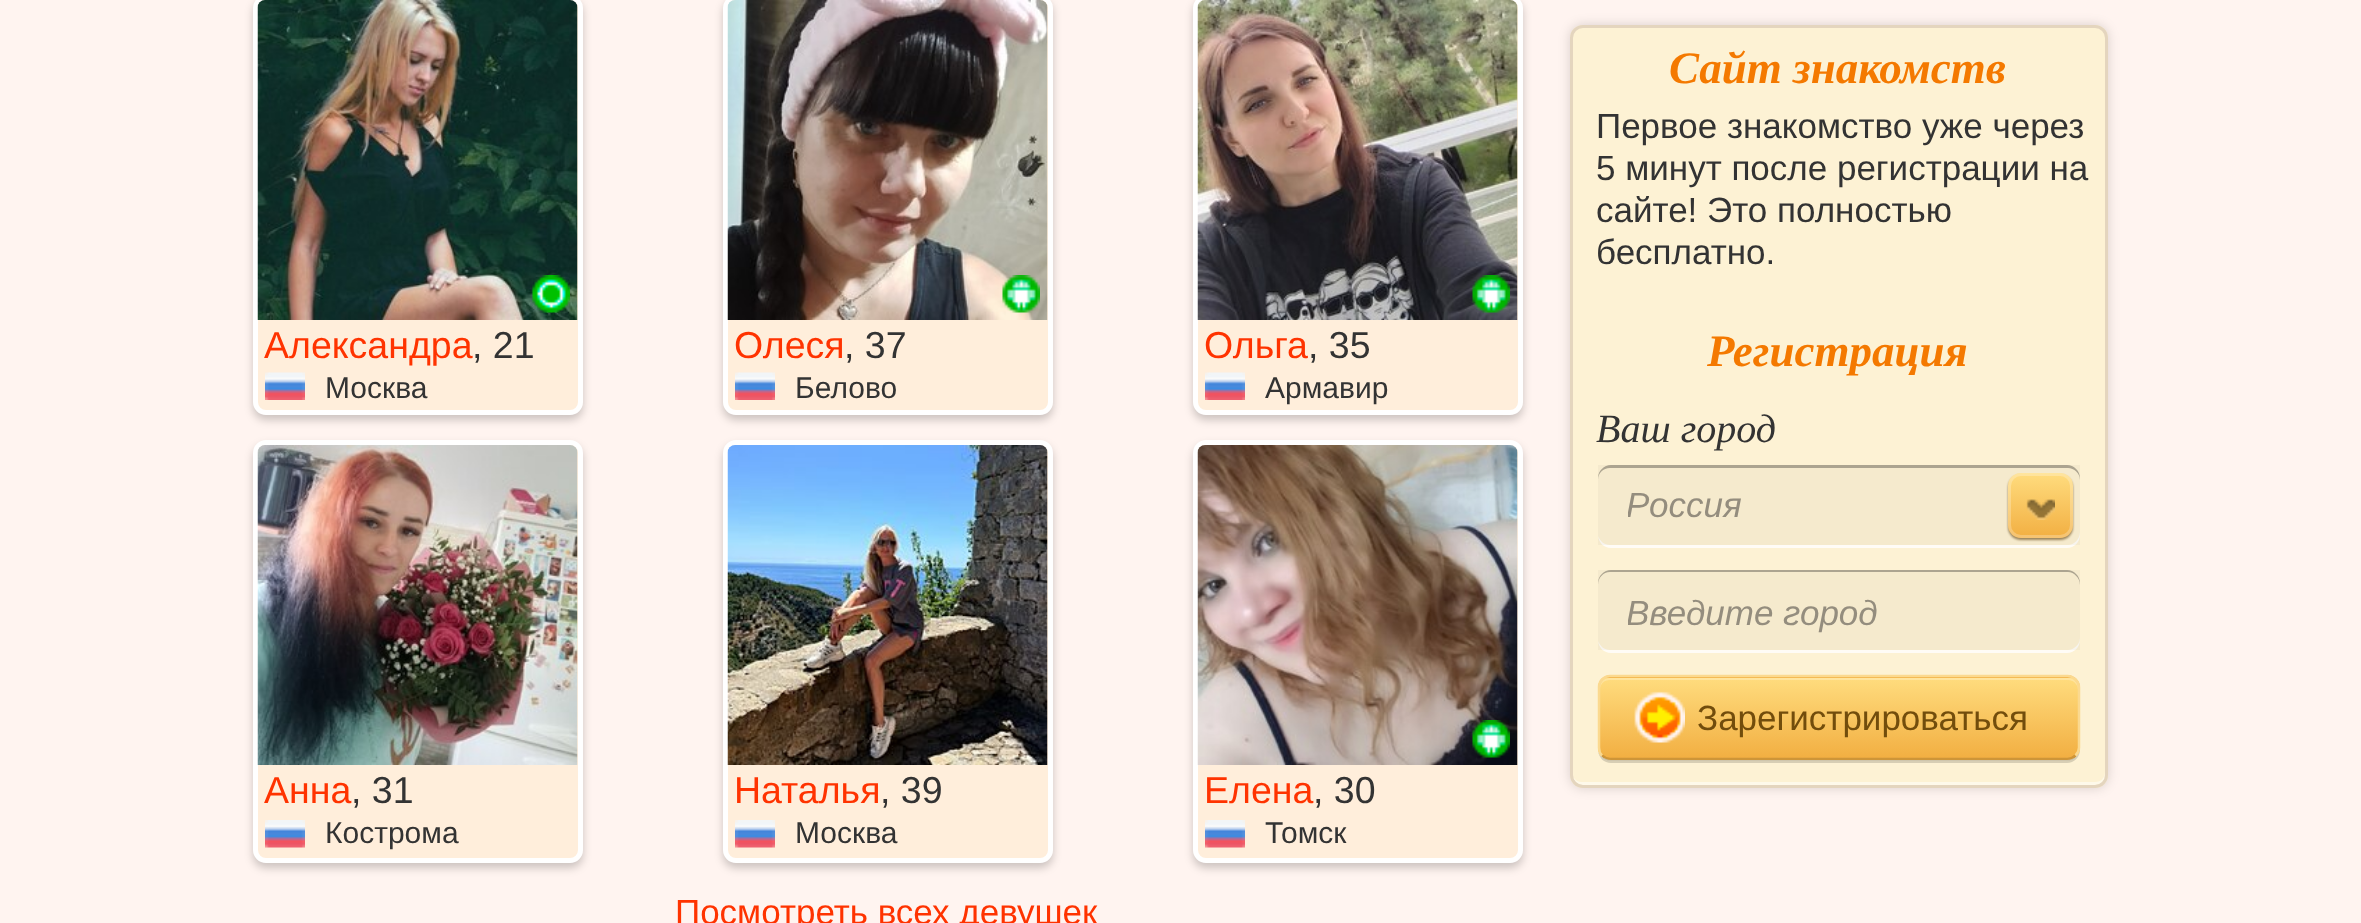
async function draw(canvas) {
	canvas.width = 2361;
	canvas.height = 923;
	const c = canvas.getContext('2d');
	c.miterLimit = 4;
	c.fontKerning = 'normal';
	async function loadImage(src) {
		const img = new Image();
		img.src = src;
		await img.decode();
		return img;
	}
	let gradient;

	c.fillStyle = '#fff4f0';
	c.fillRect(0, 0, 2361, 923);
	c.fillStyle = '#00000033';
	c.filter = 'blur(4px)';
	c.beginPath();
	c.roundRect(253, 0, 330, 420, 13);
	c.fill();
	c.filter = 'none';
	c.fillStyle = '#ffeedb';
	c.beginPath();
	c.roundRect(255.5, -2.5, 325, 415, 10.5);
	c.fill();
	c.strokeStyle = '#fff';
	c.lineWidth = 5;
	c.stroke();
	c.drawImage(await loadImage('img1.png'), 257, 0, 321, 320);
	c.drawImage(await loadImage('img2.png'), 532, 275, 38, 38);
	c.font = '37.5px Liberation Sans';
	c.fillStyle = '#f30';
	c.fillText('Александра', 264, 358);
	c.fillStyle = '#333';
	c.fillText(', 21', 472, 358);
	c.drawImage(await loadImage('img3.png'), 265, 372, 40, 28);
	c.font = '30px Liberation Sans';
	c.fillText('Москва', 325, 398);
	c.fillStyle = '#00000033';
	c.filter = 'blur(4px)';
	c.beginPath();
	c.roundRect(723, 0, 330, 420, 13);
	c.fill();
	c.filter = 'none';
	c.fillStyle = '#ffeedb';
	c.beginPath();
	c.roundRect(725.5, -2.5, 325, 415, 10.5);
	c.fill();
	c.stroke();
	c.drawImage(await loadImage('img4.png'), 727, 0, 321, 320);
	c.drawImage(await loadImage('img5.png'), 1002, 275, 38, 38);
	c.font = '37.5px Liberation Sans';
	c.fillStyle = '#f30';
	c.fillText('Олеся', 734, 358);
	c.fillStyle = '#333';
	c.fillText(', 37', 844, 358);
	c.drawImage(await loadImage('img3.png'), 735, 372, 40, 28);
	c.font = '30px Liberation Sans';
	c.fillText('Белово', 795, 398);
	c.fillStyle = '#00000033';
	c.filter = 'blur(4px)';
	c.beginPath();
	c.roundRect(1193, 0, 330, 420, 13);
	c.fill();
	c.filter = 'none';
	c.fillStyle = '#ffeedb';
	c.beginPath();
	c.roundRect(1195.5, -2.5, 325, 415, 10.5);
	c.fill();
	c.stroke();
	c.drawImage(await loadImage('img6.png'), 1197, 0, 321, 320);
	c.drawImage(await loadImage('img7.png'), 1472, 275, 38, 38);
	c.font = '37.5px Liberation Sans';
	c.fillStyle = '#f30';
	c.fillText('Ольга', 1204, 358);
	c.fillStyle = '#333';
	c.fillText(', 35', 1308, 358);
	c.drawImage(await loadImage('img8.png'), 1205, 372, 40, 28);
	c.font = '30px Liberation Sans';
	c.fillText('Армавир', 1265, 398);
	c.fillStyle = '#00000033';
	c.filter = 'blur(4px)';
	c.beginPath();
	c.roundRect(253, 445, 330, 423, 13);
	c.fill();
	c.filter = 'none';
	c.fillStyle = '#ffeedb';
	c.beginPath();
	c.roundRect(255.5, 442.5, 325, 418, 10.5);
	c.fill();
	c.stroke();
	c.drawImage(await loadImage('img9.png'), 257, 445, 321, 320);
	c.font = '37.5px Liberation Sans';
	c.fillStyle = '#f30';
	c.fillText('Анна', 264, 803);
	c.fillStyle = '#333';
	c.fillText(', 31', 351, 803);
	c.drawImage(await loadImage('img10.png'), 265, 820, 40, 28);
	c.font = '30px Liberation Sans';
	c.fillText('Кострома', 325, 843);
	c.fillStyle = '#00000033';
	c.filter = 'blur(4px)';
	c.beginPath();
	c.roundRect(723, 445, 330, 423, 13);
	c.fill();
	c.filter = 'none';
	c.fillStyle = '#ffeedb';
	c.beginPath();
	c.roundRect(725.5, 442.5, 325, 418, 10.5);
	c.fill();
	c.stroke();
	c.drawImage(await loadImage('img11.png'), 727, 445, 321, 320);
	c.font = '37.5px Liberation Sans';
	c.fillStyle = '#f30';
	c.fillText('Наталья', 734, 803);
	c.fillStyle = '#333';
	c.fillText(', 39', 880, 803);
	c.drawImage(await loadImage('img10.png'), 735, 820, 40, 28);
	c.font = '30px Liberation Sans';
	c.fillText('Москва', 795, 843);
	c.fillStyle = '#00000033';
	c.filter = 'blur(4px)';
	c.beginPath();
	c.roundRect(1193, 445, 330, 423, 13);
	c.fill();
	c.filter = 'none';
	c.fillStyle = '#ffeedb';
	c.beginPath();
	c.roundRect(1195.5, 442.5, 325, 418, 10.5);
	c.fill();
	c.stroke();
	c.drawImage(await loadImage('img12.png'), 1197, 445, 321, 320);
	c.drawImage(await loadImage('img13.png'), 1472, 720, 38, 38);
	c.font = '37.5px Liberation Sans';
	c.fillStyle = '#f30';
	c.fillText('Елена', 1204, 803);
	c.fillStyle = '#333';
	c.fillText(', 30', 1313, 803);
	c.drawImage(await loadImage('img14.png'), 1205, 820, 40, 28);
	c.font = '30px Liberation Sans';
	c.fillText('Томск', 1265, 843);
	c.font = '35px Liberation Sans';
	c.fillStyle = '#f30';
	c.fillText('Посмотреть всех девушек', 675, 924);
	c.fillStyle = '#00000026';
	c.filter = 'blur(6px)';
	c.beginPath();
	c.roundRect(1570, 25, 538, 763, 13);
	c.fill();
	c.filter = 'none';
	c.fillStyle = '#fdf2d4';
	c.beginPath();
	c.roundRect(1570, 25, 538, 763, 13);
	c.fill();
	c.fillStyle = '#fef9ea';
	c.beginPath();
	c.moveTo(1573, 777);
	c.bezierCurveTo(1574, 781, 1578, 785, 1583, 785);
	c.lineTo(2095, 785);
	c.bezierCurveTo(2101, 785, 2105, 781, 2105, 775);
	c.lineTo(2105, 772);
	c.bezierCurveTo(2105, 778, 2101, 782, 2095, 782);
	c.lineTo(1582, 782);
	c.bezierCurveTo(1578, 782, 1575, 780, 1573, 777);
	c.closePath();
	c.fill();
	c.beginPath();
	c.roundRect(1571.5, 26.5, 535, 760, 11.5);
	c.strokeStyle = '#e4d5be';
	c.lineWidth = 3;
	c.stroke();
	c.font = 'italic bold 45px Liberation Serif';
	c.fillStyle = '#f47900';
	c.fillText('Сайт знакомств', 1669, 83);
	c.font = '35px Liberation Sans';
	c.fillStyle = '#333';
	for (const [text, x, y] of [
		['Первое знакомство уже через', 1596, 138],
		['5 минут после регистрации на', 1596, 180],
		['сайте! Это полностью', 1596, 222],
		['бесплатно.', 1596, 264],
	]) {
		c.fillText(text, x, y);
	}
	c.font = 'italic bold 45px Liberation Serif';
	c.fillStyle = '#f47900';
	c.fillText('Регистрация', 1707, 366);
	c.font = 'italic 40px Liberation Serif';
	c.fillStyle = '#333';
	c.fillText('Ваш город', 1596, 442);
	c.fillStyle = '#fffcf6';
	c.beginPath();
	c.moveTo(1598, 536);
	c.bezierCurveTo(1599, 543, 1604, 548, 1611, 548);
	c.lineTo(2067, 548);
	c.bezierCurveTo(2074, 548, 2080, 542, 2080, 535);
	c.lineTo(2080, 532);
	c.bezierCurveTo(2080, 539, 2074, 545, 2068, 545);
	c.lineTo(1610, 545);
	c.bezierCurveTo(1604, 545, 1600, 541, 1598, 536);
	c.closePath();
	c.fill();
	c.fillStyle = '#00000008';
	c.fillRect(1598, 465, 482, 80);
	c.fillStyle = '#aca490';
	c.beginPath();
	c.moveTo(1610, 468);
	c.lineTo(2068, 468);
	c.bezierCurveTo(2074, 468, 2080, 473, 2080, 480);
	c.lineTo(2080, 478);
	c.bezierCurveTo(2080, 471, 2074, 465, 2067, 465);
	c.lineTo(1611, 465);
	c.bezierCurveTo(1604, 465, 1598, 471, 1598, 478);
	c.lineTo(1598, 480);
	c.bezierCurveTo(1598, 473, 1603, 468, 1610, 468);
	c.closePath();
	c.fill();
	c.save();
	c.beginPath();
	c.rect(1628, 480, 385, 53);
	c.clip();
	c.font = 'italic 35px Liberation Sans';
	c.fillStyle = '#948d7e';
	c.fillText('Россия', 1626, 517);
	c.restore();
	c.fillStyle = '#7d6133bf';
	c.filter = 'blur(1px)';
	c.beginPath();
	c.roundRect(2008, 475, 65, 65, 13);
	c.fill();
	c.filter = 'none';
	gradient = c.createLinearGradient(2040, 473, 2040, 538);
	gradient.addColorStop(0, '#ffdc7e');
	gradient.addColorStop(1, '#f2af42');
	c.fillStyle = gradient;
	c.beginPath();
	c.roundRect(2008, 473, 65, 65, 13);
	c.fill();
	c.beginPath();
	c.roundRect(2009.5, 474.5, 62, 62, 11.5);
	c.strokeStyle = '#ffffff40';
	c.stroke();
	c.drawImage(await loadImage('img15.png'), 2026, 499, 29, 21);
	c.fillStyle = '#fffcf6';
	c.beginPath();
	c.moveTo(1598, 641);
	c.bezierCurveTo(1599, 648, 1604, 653, 1611, 653);
	c.lineTo(2067, 653);
	c.bezierCurveTo(2074, 653, 2080, 647, 2080, 640);
	c.lineTo(2080, 638);
	c.bezierCurveTo(2080, 644, 2074, 650, 2068, 650);
	c.lineTo(1610, 650);
	c.bezierCurveTo(1604, 650, 1600, 646, 1598, 641);
	c.closePath();
	c.fill();
	c.fillStyle = '#00000008';
	c.fillRect(1598, 570, 482, 80);
	c.fillStyle = '#aca490';
	c.beginPath();
	c.moveTo(1610, 572);
	c.lineTo(2068, 572);
	c.bezierCurveTo(2074, 572, 2080, 578, 2080, 585);
	c.lineTo(2080, 583);
	c.bezierCurveTo(2080, 576, 2074, 570, 2067, 570);
	c.lineTo(1611, 570);
	c.bezierCurveTo(1604, 570, 1598, 576, 1598, 583);
	c.lineTo(1598, 585);
	c.bezierCurveTo(1598, 578, 1603, 572, 1610, 572);
	c.closePath();
	c.fill();
	c.save();
	c.beginPath();
	c.rect(1628, 593, 440, 40);
	c.clip();
	c.font = 'italic 35px Liberation Sans';
	c.fillStyle = '#948d7e';
	c.fillText('Введите город', 1626, 625);
	c.restore();
	c.fillStyle = '#d7ceb4';
	c.beginPath();
	c.moveTo(1598, 751);
	c.bezierCurveTo(1599, 758, 1604, 763, 1611, 763);
	c.lineTo(2067, 763);
	c.bezierCurveTo(2074, 763, 2080, 757, 2080, 750);
	c.lineTo(2080, 748);
	c.bezierCurveTo(2080, 754, 2074, 760, 2068, 760);
	c.lineTo(1610, 760);
	c.bezierCurveTo(1604, 760, 1600, 756, 1598, 751);
	c.closePath();
	c.fill();
	c.fillStyle = '#f2af42';
	c.beginPath();
	c.roundRect(1598, 675, 482, 85, 13);
	c.fill();
	c.save();
	c.beginPath();
	c.roundRect(1598, 675, 482, 85, 13);
	c.clip();
	gradient = c.createLinearGradient(1839, 678, 1839, 758);
	gradient.addColorStop(0, '#ffdc7e');
	gradient.addColorStop(1, '#f2af42');
	c.fillStyle = gradient;
	c.fillRect(1598, 678, 482, 80);
	c.restore();
	c.fillStyle = '#ffffff40';
	c.beginPath();
	c.moveTo(1610, 680);
	c.lineTo(2068, 680);
	c.bezierCurveTo(2073, 680, 2078, 684, 2078, 690);
	c.lineTo(2078, 688);
	c.bezierCurveTo(2078, 682, 2074, 678, 2068, 678);
	c.lineTo(1610, 678);
	c.bezierCurveTo(1604, 678, 1600, 682, 1600, 688);
	c.lineTo(1600, 690);
	c.bezierCurveTo(1600, 684, 1604, 680, 1610, 680);
	c.closePath();
	c.fill();
	c.beginPath();
	c.moveTo(2075.5, 755.5);
	c.bezierCurveTo(2073.5, 757.5, 2070.5, 759, 2067.5, 759);
	c.lineTo(1610, 759);
	c.bezierCurveTo(1607, 759, 1604, 757.5, 1602, 755.5);
	c.strokeStyle = '#00000026';
	c.lineWidth = 2.5;
	c.stroke();
	c.beginPath();
	c.moveTo(1602, 755.5);
	c.bezierCurveTo(1600, 753.5, 1599, 750.5, 1599, 747.5);
	c.lineTo(1599, 687.5);
	c.bezierCurveTo(1599, 684.5, 1600, 681.5, 1602, 679.5);
	c.bezierCurveTo(1604, 677.5, 1607, 676, 1610, 676);
	c.lineTo(2067.5, 676);
	c.bezierCurveTo(2070.5, 676, 2073.5, 677.5, 2075.5, 679.5);
	c.bezierCurveTo(2077.5, 681.5, 2079, 684.5, 2079, 687.5);
	c.lineTo(2079, 747.5);
	c.bezierCurveTo(2079, 750.5, 2077.5, 753.5, 2075.5, 755.5);
	c.strokeStyle = '#fbd98f';
	c.stroke();
	c.drawImage(await loadImage('img16.png'), 1634, 691, 51, 52);
	c.font = '35px Liberation Sans';
	c.fillStyle = '#724d0c';
	c.fillText('Зарегистрироваться', 1697, 730);
}

draw(document.querySelector('canvas'));
